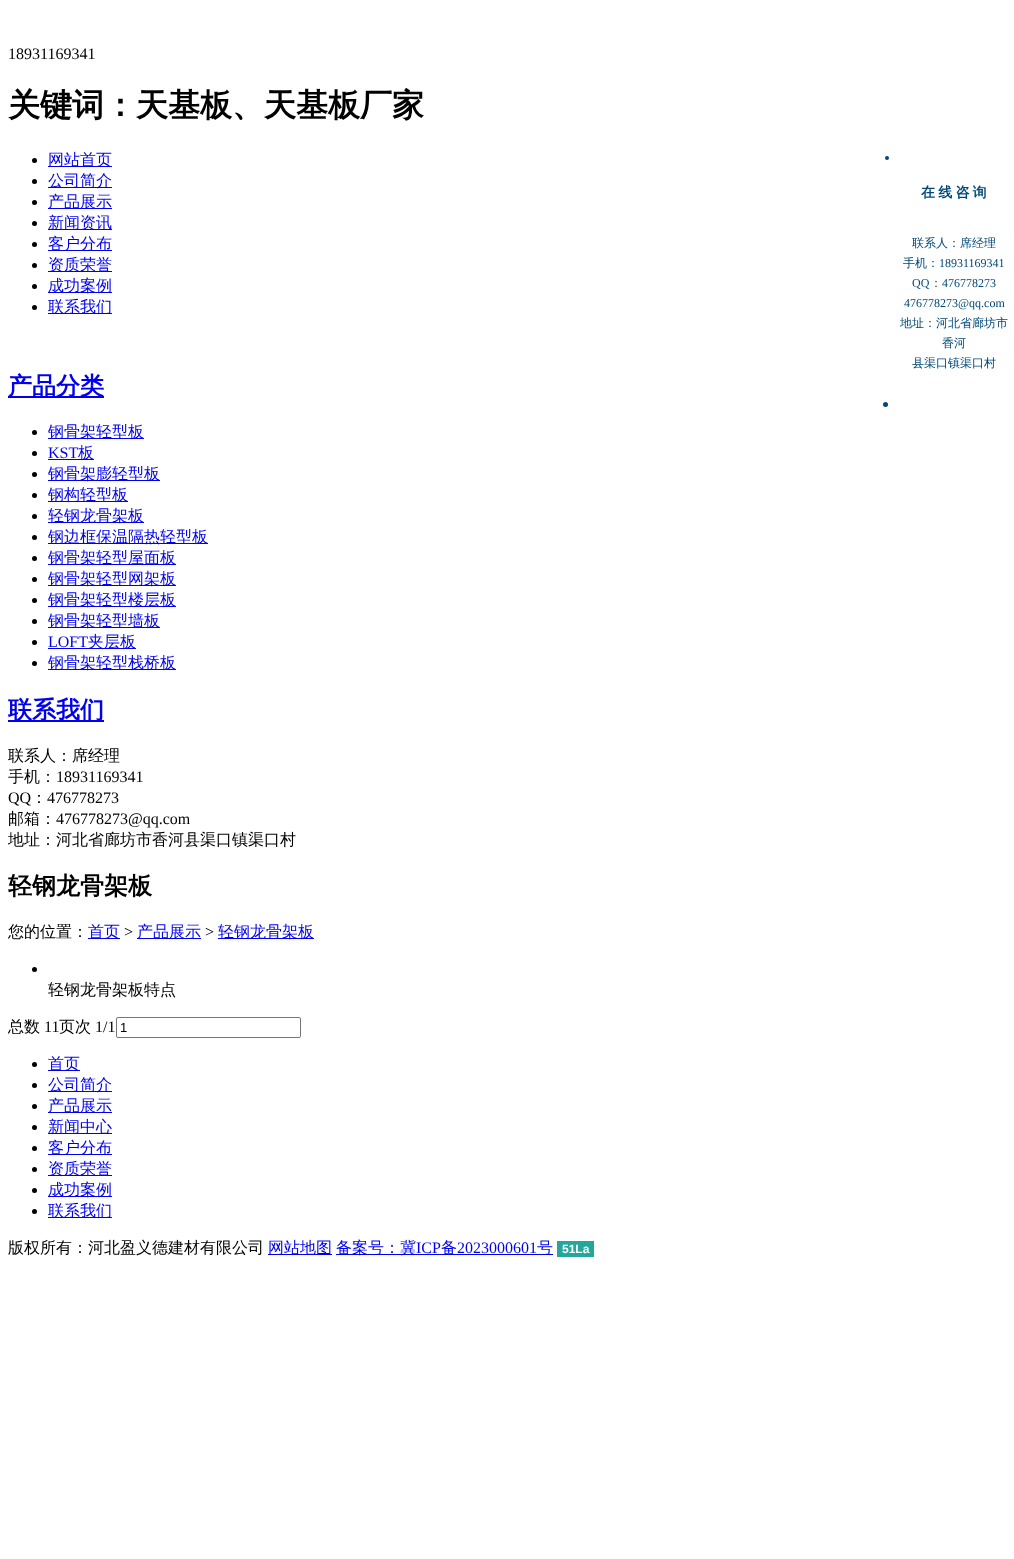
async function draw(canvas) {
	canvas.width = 1014;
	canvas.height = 1559;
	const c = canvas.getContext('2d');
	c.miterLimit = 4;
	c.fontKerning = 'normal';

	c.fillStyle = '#fff';
	c.fillRect(0, 0, 1014, 1559);
	c.font = '16px Liberation Serif';
	c.fillStyle = '#000';
	c.fillText('18931169341', 8, 59);
	c.font = 'bold 32px WenQuanYi Zen Hei';
	c.fillText('关键词：天基板、天基板厂家', 8, 116);
	c.beginPath();
	c.arc(34.5, 160.5, 2.5, 0, 2 * Math.PI);
	c.fill();
	c.fillStyle = '#00e';
	c.fillRect(48, 166, 64, 1);
	c.font = '500 16px WenQuanYi Zen Hei';
	c.fillText('网站首页', 48, 165);
	c.fillStyle = '#000';
	c.beginPath();
	c.arc(34.5, 181.5, 2.5, 0, 2 * Math.PI);
	c.fill();
	c.fillStyle = '#00e';
	c.fillRect(48, 187, 64, 1);
	c.fillText('公司简介', 48, 186);
	c.fillStyle = '#000';
	c.beginPath();
	c.arc(34.5, 202.5, 2.5, 0, 2 * Math.PI);
	c.fill();
	c.fillStyle = '#00e';
	c.fillRect(48, 208, 64, 1);
	c.fillText('产品展示', 48, 207);
	c.fillStyle = '#000';
	c.beginPath();
	c.arc(34.5, 223.5, 2.5, 0, 2 * Math.PI);
	c.fill();
	c.fillStyle = '#00e';
	c.fillRect(48, 229, 64, 1);
	c.fillText('新闻资讯', 48, 228);
	c.fillStyle = '#000';
	c.beginPath();
	c.arc(34.5, 244.5, 2.5, 0, 2 * Math.PI);
	c.fill();
	c.fillStyle = '#00e';
	c.fillRect(48, 250, 64, 1);
	c.fillText('客户分布', 48, 249);
	c.fillStyle = '#000';
	c.beginPath();
	c.arc(34.5, 265.5, 2.5, 0, 2 * Math.PI);
	c.fill();
	c.fillStyle = '#00e';
	c.fillRect(48, 271, 64, 1);
	c.fillText('资质荣誉', 48, 270);
	c.fillStyle = '#000';
	c.beginPath();
	c.arc(34.5, 286.5, 2.5, 0, 2 * Math.PI);
	c.fill();
	c.fillStyle = '#00e';
	c.fillRect(48, 292, 64, 1);
	c.fillText('成功案例', 48, 291);
	c.fillStyle = '#000';
	c.beginPath();
	c.arc(34.5, 307.5, 2.5, 0, 2 * Math.PI);
	c.fill();
	c.fillStyle = '#00e';
	c.fillRect(48, 313, 64, 1);
	c.fillText('联系我们', 48, 312);
	c.fillStyle = '#004876';
	c.beginPath();
	c.arc(887, 158, 2, 0, 2 * Math.PI);
	c.fill();
	c.wordSpacing = '-1px';
	c.font = 'bold 14px WenQuanYi Zen Hei';
	c.fillText('在 线 咨 询', 921, 197);
	c.wordSpacing = '0px';
	c.font = '500 12px WenQuanYi Zen Hei';
	c.fillText('联系人：席经理', 912, 247);
	c.fillText('手机：', 903, 267);
	c.font = '12px Liberation Serif';
	c.fillText('18931169341', 939, 267);
	c.fillText('QQ', 912, 287);
	c.font = '500 12px WenQuanYi Zen Hei';
	c.fillText('：', 930, 287);
	c.font = '12px Liberation Serif';
	c.fillText('476778273', 942, 287);
	c.fillText('476778273@qq.com', 904, 307);
	c.font = '500 12px WenQuanYi Zen Hei';
	for (const [text, x, y] of [
		['地址：河北省廊坊市', 900, 327],
		['香河', 942, 347],
		['县渠口镇渠口村', 912, 367],
	]) {
		c.fillText(text, x, y);
	}
	c.beginPath();
	c.arc(885.5, 404.5, 2.5, 0, 2 * Math.PI);
	c.fill();
	c.fillStyle = '#00e';
	c.fillRect(8, 396, 96, 2);
	c.font = 'bold 24px WenQuanYi Zen Hei';
	c.fillText('产品分类', 8, 394);
	c.fillStyle = '#000';
	c.beginPath();
	c.arc(34.5, 432.5, 2.5, 0, 2 * Math.PI);
	c.fill();
	c.fillStyle = '#00e';
	c.fillRect(48, 438, 96, 1);
	c.font = '500 16px WenQuanYi Zen Hei';
	c.fillText('钢骨架轻型板', 48, 437);
	c.fillStyle = '#000';
	c.beginPath();
	c.arc(34.5, 453.5, 2.5, 0, 2 * Math.PI);
	c.fill();
	c.font = '16px Liberation Serif';
	c.fillStyle = '#00e';
	c.fillText('KST', 48, 458);
	c.fillRect(48, 459, 46, 1);
	c.font = '500 16px WenQuanYi Zen Hei';
	c.fillText('板', 78, 458);
	c.fillStyle = '#000';
	c.beginPath();
	c.arc(34.5, 474.5, 2.5, 0, 2 * Math.PI);
	c.fill();
	c.fillStyle = '#00e';
	c.fillRect(48, 480, 112, 1);
	c.fillText('钢骨架膨轻型板', 48, 479);
	c.fillStyle = '#000';
	c.beginPath();
	c.arc(34.5, 495.5, 2.5, 0, 2 * Math.PI);
	c.fill();
	c.fillStyle = '#00e';
	c.fillRect(48, 501, 80, 1);
	c.fillText('钢构轻型板', 48, 500);
	c.fillStyle = '#000';
	c.beginPath();
	c.arc(34.5, 516.5, 2.5, 0, 2 * Math.PI);
	c.fill();
	c.fillStyle = '#00e';
	c.fillRect(48, 522, 96, 1);
	c.fillText('轻钢龙骨架板', 48, 521);
	c.fillStyle = '#000';
	c.beginPath();
	c.arc(34.5, 537.5, 2.5, 0, 2 * Math.PI);
	c.fill();
	c.fillStyle = '#00e';
	c.fillRect(48, 543, 160, 1);
	c.fillText('钢边框保温隔热轻型板', 48, 542);
	c.fillStyle = '#000';
	c.beginPath();
	c.arc(34.5, 558.5, 2.5, 0, 2 * Math.PI);
	c.fill();
	c.fillStyle = '#00e';
	c.fillRect(48, 564, 128, 1);
	c.fillText('钢骨架轻型屋面板', 48, 563);
	c.fillStyle = '#000';
	c.beginPath();
	c.arc(34.5, 579.5, 2.5, 0, 2 * Math.PI);
	c.fill();
	c.fillStyle = '#00e';
	c.fillRect(48, 585, 128, 1);
	c.fillText('钢骨架轻型网架板', 48, 584);
	c.fillStyle = '#000';
	c.beginPath();
	c.arc(34.5, 600.5, 2.5, 0, 2 * Math.PI);
	c.fill();
	c.fillStyle = '#00e';
	c.fillRect(48, 606, 128, 1);
	c.fillText('钢骨架轻型楼层板', 48, 605);
	c.fillStyle = '#000';
	c.beginPath();
	c.arc(34.5, 621.5, 2.5, 0, 2 * Math.PI);
	c.fill();
	c.fillStyle = '#00e';
	c.fillRect(48, 627, 112, 1);
	c.fillText('钢骨架轻型墙板', 48, 626);
	c.fillStyle = '#000';
	c.beginPath();
	c.arc(34.5, 642.5, 2.5, 0, 2 * Math.PI);
	c.fill();
	c.font = '16px Liberation Serif';
	c.fillStyle = '#00e';
	c.fillText('LOFT', 48, 647);
	c.fillRect(48, 648, 88, 1);
	c.font = '500 16px WenQuanYi Zen Hei';
	c.fillText('夹层板', 88, 647);
	c.fillStyle = '#000';
	c.beginPath();
	c.arc(34.5, 663.5, 2.5, 0, 2 * Math.PI);
	c.fill();
	c.fillStyle = '#00e';
	c.fillRect(48, 669, 128, 1);
	c.fillText('钢骨架轻型栈桥板', 48, 668);
	c.fillRect(8, 720, 96, 2);
	c.font = 'bold 24px WenQuanYi Zen Hei';
	c.fillText('联系我们', 8, 718);
	c.font = '500 16px WenQuanYi Zen Hei';
	c.fillStyle = '#000';
	c.fillText('联系人：席经理', 8, 761);
	c.fillText('手机：', 8, 782);
	c.font = '16px Liberation Serif';
	c.fillText('18931169341', 56, 782);
	c.fillText('QQ', 8, 803);
	c.font = '500 16px WenQuanYi Zen Hei';
	c.fillText('：', 31, 803);
	c.font = '16px Liberation Serif';
	c.fillText('476778273', 47, 803);
	c.font = '500 16px WenQuanYi Zen Hei';
	c.fillText('邮箱：', 8, 824);
	c.font = '16px Liberation Serif';
	c.fillText('476778273@qq.com', 56, 824);
	c.font = '500 16px WenQuanYi Zen Hei';
	c.fillText('地址：河北省廊坊市香河县渠口镇渠口村', 8, 845);
	c.font = 'bold 24px WenQuanYi Zen Hei';
	c.fillText('轻钢龙骨架板', 8, 894);
	c.font = '500 16px WenQuanYi Zen Hei';
	c.fillText('您的位置：', 8, 937);
	c.fillStyle = '#00e';
	c.fillRect(88, 938, 32, 1);
	c.fillText('首页', 88, 937);
	c.font = '16px Liberation Serif';
	c.fillStyle = '#000';
	c.fillText('>', 124, 937);
	c.fillStyle = '#00e';
	c.fillRect(137, 938, 64, 1);
	c.font = '500 16px WenQuanYi Zen Hei';
	c.fillText('产品展示', 137, 937);
	c.font = '16px Liberation Serif';
	c.fillStyle = '#000';
	c.fillText('>', 205, 937);
	c.fillStyle = '#00e';
	c.fillRect(218, 938, 96, 1);
	c.font = '500 16px WenQuanYi Zen Hei';
	c.fillText('轻钢龙骨架板', 218, 937);
	c.fillStyle = '#000';
	c.beginPath();
	c.arc(34.5, 969.5, 2.5, 0, 2 * Math.PI);
	c.fill();
	c.fillText('轻钢龙骨架板特点', 48, 995);
	c.fillText('总数', 8, 1032);
	c.font = '16px Liberation Serif';
	c.fillText('11', 44, 1032);
	c.font = '500 16px WenQuanYi Zen Hei';
	c.fillText('页次', 59, 1032);
	c.font = '16px Liberation Serif';
	c.fillText('1/1', 95, 1032);
	c.beginPath();
	c.roundRect(116.5, 1017.5, 184, 20, 1.5);
	c.strokeStyle = '#767676';
	c.stroke();
	c.font = '13px Liberation Sans';
	c.fillText('1', 120, 1032);
	c.beginPath();
	c.arc(34.5, 1064.5, 2.5, 0, 2 * Math.PI);
	c.fill();
	c.fillStyle = '#00e';
	c.fillRect(48, 1070, 32, 1);
	c.font = '500 16px WenQuanYi Zen Hei';
	c.fillText('首页', 48, 1069);
	c.fillStyle = '#000';
	c.beginPath();
	c.arc(34.5, 1085.5, 2.5, 0, 2 * Math.PI);
	c.fill();
	c.fillStyle = '#00e';
	c.fillRect(48, 1091, 64, 1);
	c.fillText('公司简介', 48, 1090);
	c.fillStyle = '#000';
	c.beginPath();
	c.arc(34.5, 1106.5, 2.5, 0, 2 * Math.PI);
	c.fill();
	c.fillStyle = '#00e';
	c.fillRect(48, 1112, 64, 1);
	c.fillText('产品展示', 48, 1111);
	c.fillStyle = '#000';
	c.beginPath();
	c.arc(34.5, 1127.5, 2.5, 0, 2 * Math.PI);
	c.fill();
	c.fillStyle = '#00e';
	c.fillRect(48, 1133, 64, 1);
	c.fillText('新闻中心', 48, 1132);
	c.fillStyle = '#000';
	c.beginPath();
	c.arc(34.5, 1148.5, 2.5, 0, 2 * Math.PI);
	c.fill();
	c.fillStyle = '#00e';
	c.fillRect(48, 1154, 64, 1);
	c.fillText('客户分布', 48, 1153);
	c.fillStyle = '#000';
	c.beginPath();
	c.arc(34.5, 1169.5, 2.5, 0, 2 * Math.PI);
	c.fill();
	c.fillStyle = '#00e';
	c.fillRect(48, 1175, 64, 1);
	c.fillText('资质荣誉', 48, 1174);
	c.fillStyle = '#000';
	c.beginPath();
	c.arc(34.5, 1190.5, 2.5, 0, 2 * Math.PI);
	c.fill();
	c.fillStyle = '#00e';
	c.fillRect(48, 1196, 64, 1);
	c.fillText('成功案例', 48, 1195);
	c.fillStyle = '#000';
	c.beginPath();
	c.arc(34.5, 1211.5, 2.5, 0, 2 * Math.PI);
	c.fill();
	c.fillStyle = '#00e';
	c.fillRect(48, 1217, 64, 1);
	c.fillText('联系我们', 48, 1216);
	c.fillStyle = '#000';
	c.fillText('版权所有：河北盈义德建材有限公司', 8, 1253);
	c.fillStyle = '#00e';
	c.fillRect(268, 1254, 64, 1);
	c.fillText('网站地图', 268, 1253);
	c.fillRect(336, 1254, 217, 1);
	c.fillText('备案号：冀', 336, 1253);
	c.font = '16px Liberation Serif';
	c.fillText('ICP', 416, 1253);
	c.font = '500 16px WenQuanYi Zen Hei';
	c.fillText('备', 441, 1253);
	c.font = '16px Liberation Serif';
	c.fillText('2023000601', 457, 1253);
	c.font = '500 16px WenQuanYi Zen Hei';
	c.fillText('号', 537, 1253);
	c.fillStyle = '#25a69a';
	c.fillRect(557, 1241, 37, 16);
	c.font = 'bold 12px Liberation Sans';
	c.fillStyle = '#fff';
	c.fillText('51La', 562, 1253);
}

draw(document.querySelector('canvas'));
